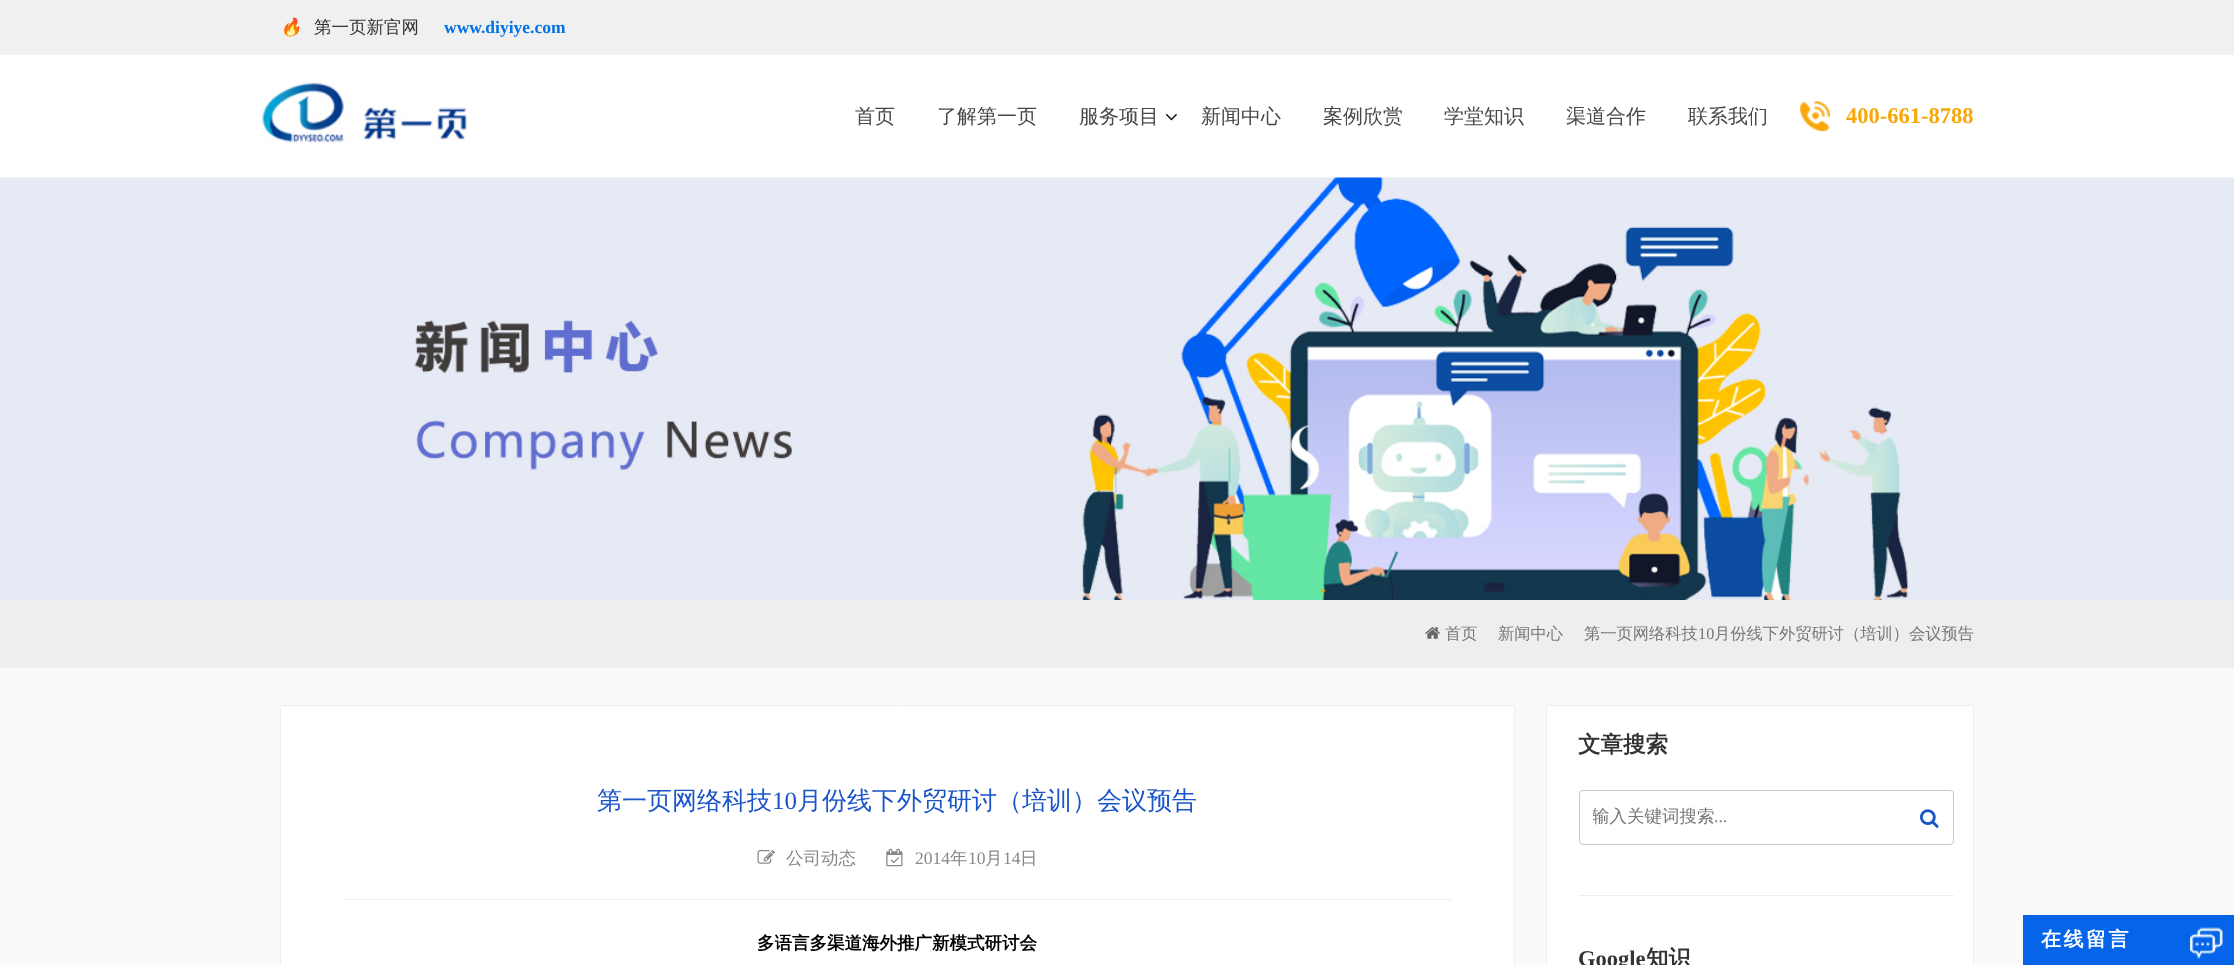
async function draw(canvas) {
	canvas.width = 2234;
	canvas.height = 965;
	const c = canvas.getContext('2d');
	c.miterLimit = 4;
	c.fontKerning = 'normal';
	async function loadImage(src) {
		const img = new Image();
		img.src = src;
		await img.decode();
		return img;
	}

	c.fillStyle = '#fff';
	c.fillRect(0, 0, 2234, 965);
	c.fillStyle = '#f0f0f0';
	c.fillRect(0, 0, 2234, 55);
	c.font = 'italic 17.5px Noto Color Emoji';
	c.fillStyle = '#e74c3c';
	c.fillText('🔥', 280, 33);
	c.font = '500 17.5px WenQuanYi Zen Hei';
	c.fillStyle = '#333';
	c.fillText('第一页新官网', 314, 33);
	c.font = 'bold 17.5px Liberation Serif';
	c.fillStyle = '#0372e7';
	c.fillText('www.diyiye.com', 444, 33);
	c.drawImage(await loadImage('img1.png'), 262, 82, 205, 61);
	c.font = '500 20px WenQuanYi Zen Hei';
	c.fillStyle = '#484747';
	for (const [text, x, y] of [
		['首页', 855, 123],
		['了解第一页', 937, 123],
		['服务项目', 1079, 123],
	]) {
		c.fillText(text, x, y);
	}
	c.drawImage(await loadImage('img2.png'), 1165, 113, 12, 8);
	for (const [text, x, y] of [
		['新闻中心', 1201, 123],
		['案例欣赏', 1323, 123],
		['学堂知识', 1444, 123],
		['渠道合作', 1566, 123],
		['联系我们', 1688, 123],
	]) {
		c.fillText(text, x, y);
	}
	c.drawImage(await loadImage('img3.png'), 1800, 101, 30, 31);
	c.font = 'bold 22.5px Liberation Serif';
	c.fillStyle = '#f8a608';
	c.fillText('400-661-8788', 1846, 123);
	c.drawImage(await loadImage('img4.png'), 0, 177, 2234, 423);
	c.fillStyle = '#eee';
	c.fillRect(0, 600, 2234, 68);
	c.drawImage(await loadImage('img5.png'), 1425, 627, 15, 12);
	c.font = '500 16.25px WenQuanYi Zen Hei';
	c.fillStyle = '#777';
	for (const [text, x, y] of [
		['首页', 1445, 639],
		['新闻中心', 1498, 639],
		['第一页网络科技', 1584, 639],
	]) {
		c.fillText(text, x, y);
	}
	c.font = '16.25px Liberation Serif';
	c.fillText('10', 1698, 639);
	c.font = '500 16.25px WenQuanYi Zen Hei';
	c.fillText('月份线下外贸研讨（培训）会议预告', 1714, 639);
	c.fillStyle = '#fafafa';
	c.fillRect(0, 668, 2234, 297);
	c.fillStyle = '#fff';
	c.beginPath();
	c.rect(280.5, 705.5, 1234, 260);
	c.fill();
	c.strokeStyle = '#eee';
	c.stroke();
	c.font = '500 25px WenQuanYi Zen Hei';
	c.fillStyle = '#1a55c8';
	c.fillText('第一页网络科技', 597, 809);
	c.font = '25px Liberation Serif';
	c.fillText('10', 772, 809);
	c.font = '500 25px WenQuanYi Zen Hei';
	c.fillText('月份线下外贸研讨（培训）会议预告', 797, 809);
	c.drawImage(await loadImage('img6.png'), 757, 850, 18, 14);
	c.font = '500 17.5px WenQuanYi Zen Hei';
	c.fillStyle = '#888';
	c.fillText('公司动态', 786, 864);
	c.drawImage(await loadImage('img7.png'), 886, 848, 17, 19);
	c.font = '17.5px Liberation Serif';
	c.fillText('2014', 915, 864);
	c.font = '500 17.5px WenQuanYi Zen Hei';
	c.fillText('年', 950, 864);
	c.font = '17.5px Liberation Serif';
	c.fillText('10', 968, 864);
	c.font = '500 17.5px WenQuanYi Zen Hei';
	c.fillText('月', 985, 864);
	c.font = '17.5px Liberation Serif';
	c.fillText('14', 1003, 864);
	c.font = '500 17.5px WenQuanYi Zen Hei';
	c.fillText('日', 1020, 864);
	c.fillStyle = '#eee';
	c.fillRect(344, 899, 1107, 1);
	c.font = 'bold 17.5px WenQuanYi Zen Hei';
	c.fillStyle = '#000';
	c.fillText('多语言多渠道海外推广新模式研讨会', 757, 949);
	c.fillStyle = '#fff';
	c.beginPath();
	c.rect(1546.5, 705.5, 427, 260);
	c.fill();
	c.stroke();
	c.font = 'bold 22.5px WenQuanYi Zen Hei';
	c.fillStyle = '#333';
	c.fillText('文章搜索', 1578, 752);
	c.beginPath();
	c.roundRect(1579.5, 790.5, 374, 54, 3.5);
	c.strokeStyle = '#c8c8c8';
	c.stroke();
	c.save();
	c.beginPath();
	c.rect(1593, 806, 297, 23);
	c.clip();
	c.font = '500 17.5px WenQuanYi Zen Hei';
	c.fillStyle = '#777';
	c.fillText('输入关键词搜索', 1592, 822);
	c.restore();
	c.font = '17.5px Liberation Serif';
	c.fillStyle = '#777';
	c.fillText('...', 1714, 822);
	c.drawImage(await loadImage('img8.png'), 1920, 809, 19, 19);
	c.fillStyle = '#eee';
	c.fillRect(1579, 895, 375, 1);
	c.font = 'bold 22.5px Liberation Serif';
	c.fillStyle = '#333';
	c.fillText('Google', 1578, 966);
	c.font = 'bold 22.5px WenQuanYi Zen Hei';
	c.fillText('知识', 1646, 966);
	c.fillStyle = '#0465ea';
	c.fillRect(2023, 915, 211, 50);
	c.letterSpacing = '2.5px';
	c.font = 'bold 20px WenQuanYi Zen Hei';
	c.fillStyle = '#fff';
	c.fillText('在线留言', 2041, 946);
	c.drawImage(await loadImage('img9.png'), 2190, 927, 33, 32);
}

draw(document.querySelector('canvas'));
